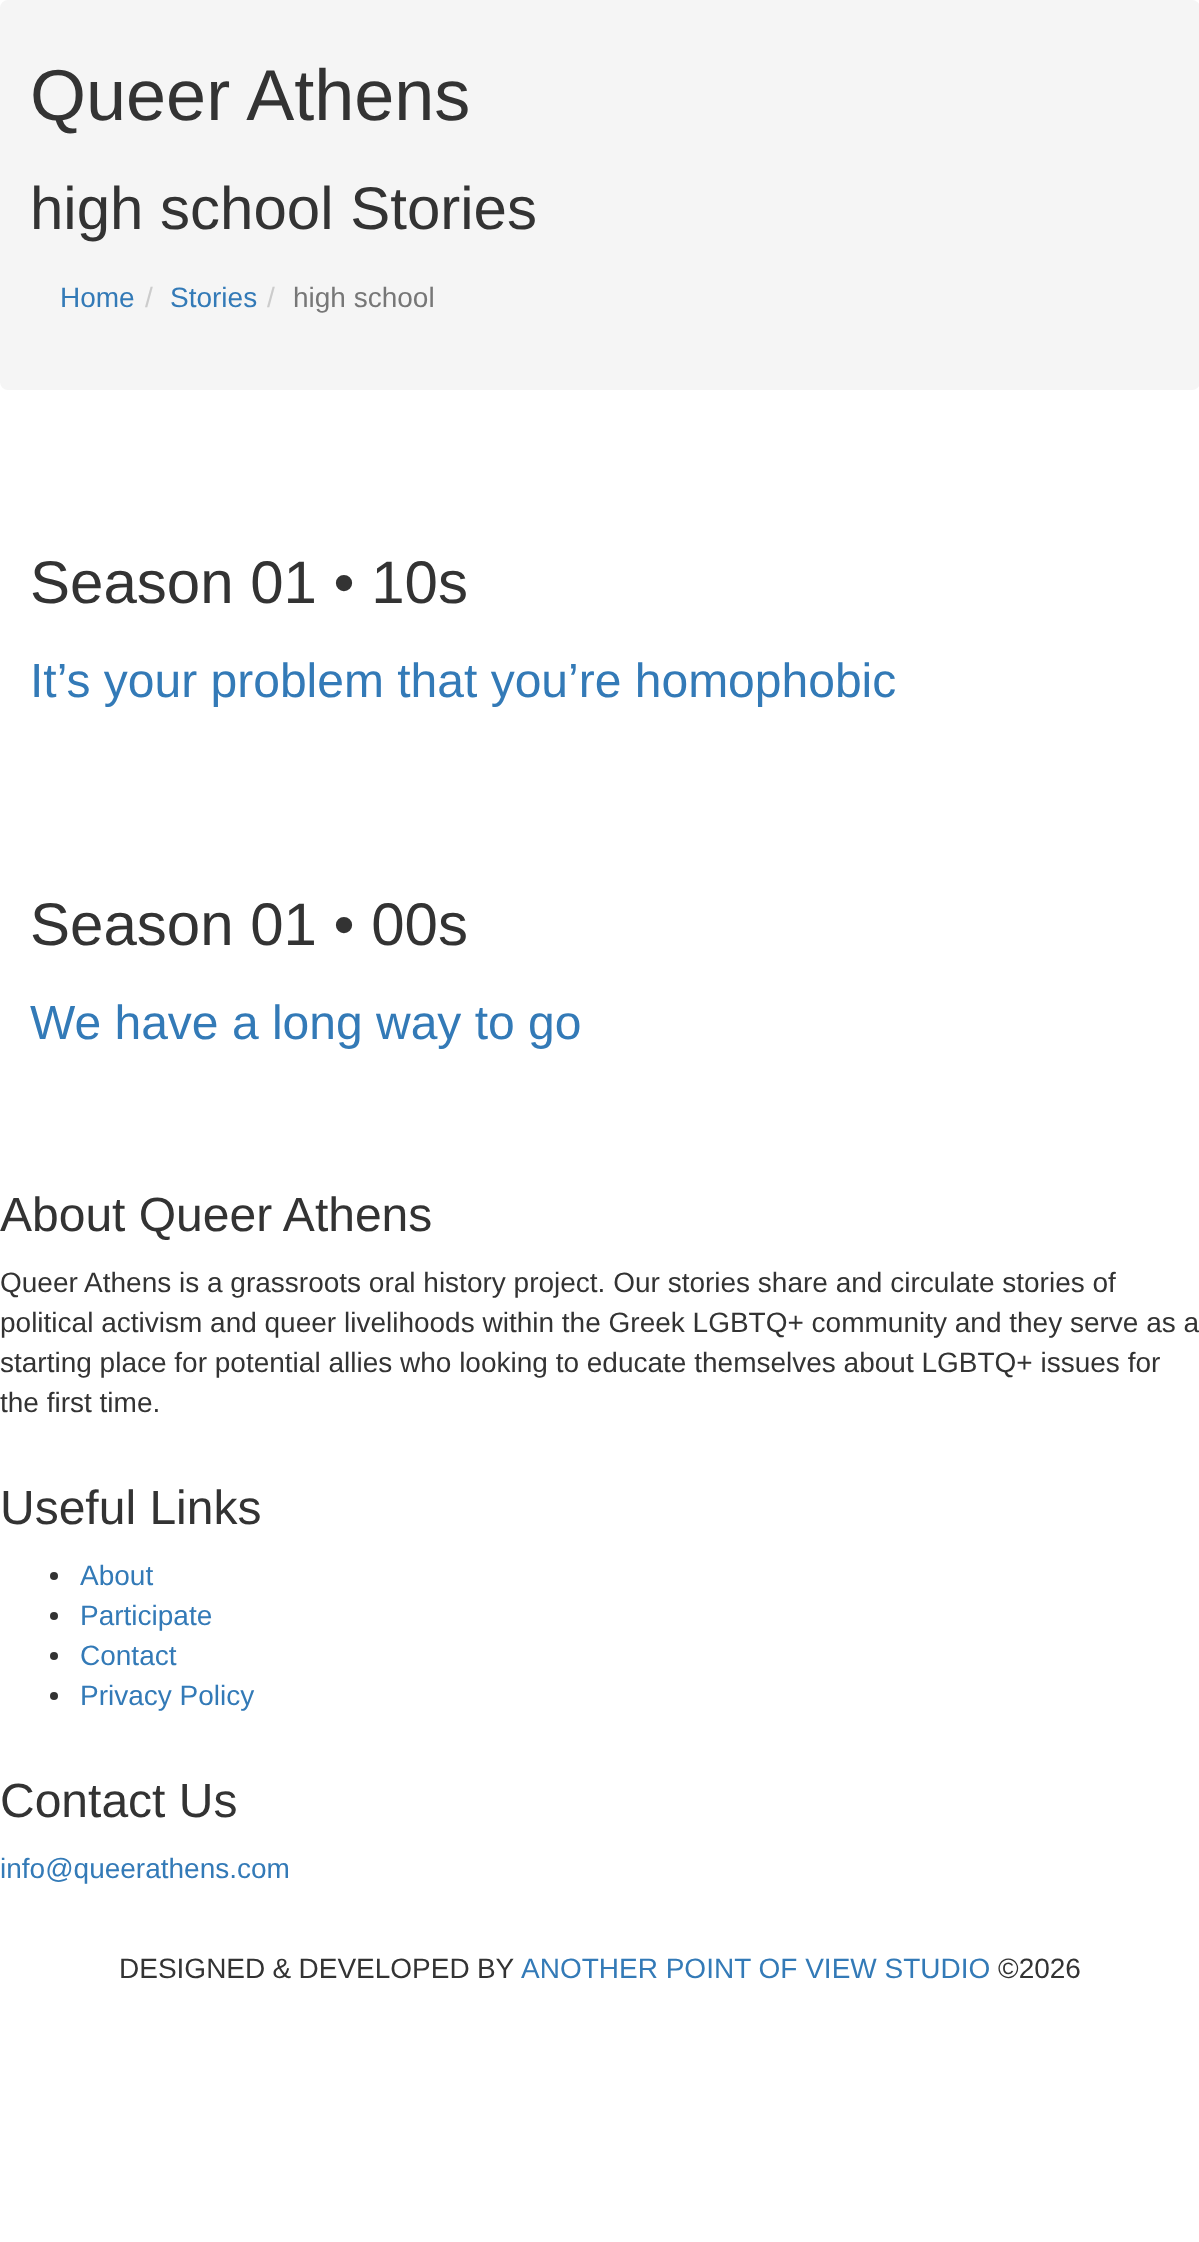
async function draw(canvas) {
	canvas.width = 1199;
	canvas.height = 2242;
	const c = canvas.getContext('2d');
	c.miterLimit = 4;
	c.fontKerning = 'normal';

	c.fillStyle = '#fff';
	c.fillRect(0, 0, 1199, 2242);
	c.fillStyle = '#f5f5f5';
	c.beginPath();
	c.roundRect(0, 0, 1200, 390, 8);
	c.fill();
	c.font = '72px Liberation Sans';
	c.fillStyle = '#333';
	c.fillText('Queer Athens', 30, 120);
	c.font = '60px Liberation Sans';
	c.fillText('high school Stories', 30, 229);
	c.font = '28px Liberation Sans';
	c.fillStyle = '#337ab7';
	c.fillText('Home', 60, 307);
	c.fillStyle = '#ccc';
	c.fillText('/', 145, 307);
	c.fillStyle = '#337ab7';
	c.fillText('Stories', 170, 307);
	c.fillStyle = '#ccc';
	c.fillText('/', 267, 307);
	c.fillStyle = '#777';
	c.fillText('high school', 293, 307);
	c.font = '60px Liberation Sans';
	c.fillStyle = '#333';
	c.fillText('Season 01 • 10s', 30, 603);
	c.font = '48px Liberation Sans';
	c.fillStyle = '#337ab7';
	c.fillText('It’s your problem that you’re homophobic', 30, 697);
	c.font = '60px Liberation Sans';
	c.fillStyle = '#333';
	c.fillText('Season 01 • 00s', 30, 945);
	c.font = '48px Liberation Sans';
	c.fillStyle = '#337ab7';
	c.fillText('We have a long way to go', 30, 1039);
	c.fillStyle = '#333';
	c.fillText('About Queer Athens', 0, 1231);
	c.font = '28px Liberation Sans';
	for (const [text, x, y] of [
		['Queer Athens is a grassroots oral history project. Our stories share and circulate stories of', 0, 1292],
		['political activism and queer livelihoods within the Greek LGBTQ+ community and they serve as a', 0, 1332],
		['starting place for potential allies who looking to educate themselves about LGBTQ+ issues for', 0, 1372],
		['the first time.', 0, 1412],
	]) {
		c.fillText(text, x, y);
	}
	c.font = '48px Liberation Sans';
	c.fillText('Useful Links', 0, 1524);
	c.beginPath();
	c.arc(54, 1576, 4, 0, 2 * Math.PI);
	c.fill();
	c.font = '28px Liberation Sans';
	c.fillStyle = '#337ab7';
	c.fillText('About', 80, 1585);
	c.fillStyle = '#333';
	c.beginPath();
	c.arc(54, 1616, 4, 0, 2 * Math.PI);
	c.fill();
	c.fillStyle = '#337ab7';
	c.fillText('Participate', 80, 1625);
	c.fillStyle = '#333';
	c.beginPath();
	c.arc(54, 1656, 4, 0, 2 * Math.PI);
	c.fill();
	c.fillStyle = '#337ab7';
	c.fillText('Contact', 80, 1665);
	c.fillStyle = '#333';
	c.beginPath();
	c.arc(54, 1696, 4, 0, 2 * Math.PI);
	c.fill();
	c.fillStyle = '#337ab7';
	c.fillText('Privacy Policy', 80, 1705);
	c.font = '48px Liberation Sans';
	c.fillStyle = '#333';
	c.fillText('Contact Us', 0, 1817);
	c.font = '28px Liberation Sans';
	c.fillStyle = '#337ab7';
	c.fillText('info@queerathens.com', 0, 1878);
	c.wordSpacing = '-0.5px';
	c.fillStyle = '#333';
	c.fillText('DESIGNED & DEVELOPED BY', 119, 1978);
	c.wordSpacing = '0px';
	c.fillStyle = '#337ab7';
	c.fillText('ANOTHER POINT OF VIEW STUDIO', 521, 1978);
	c.fillStyle = '#333';
	c.fillText('©2026', 998, 1978);
}

draw(document.querySelector('canvas'));
